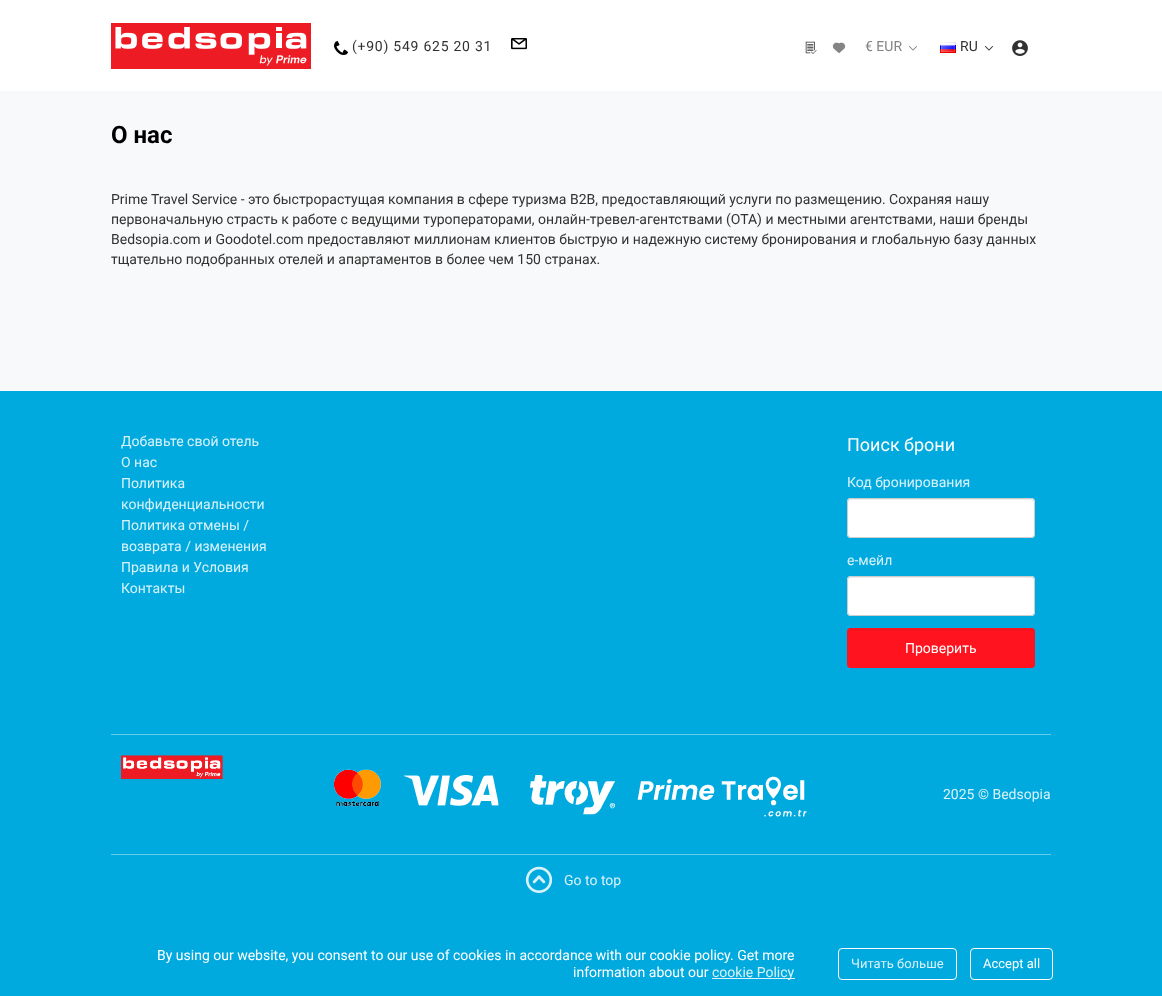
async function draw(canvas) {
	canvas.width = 1162;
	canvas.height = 996;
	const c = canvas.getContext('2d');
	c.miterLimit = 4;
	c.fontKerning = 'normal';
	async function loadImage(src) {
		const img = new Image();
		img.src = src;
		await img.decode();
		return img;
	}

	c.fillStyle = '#f8f9fa';
	c.fillRect(0, 0, 1162, 996);
	c.fillStyle = '#fff';
	c.fillRect(0, 0, 1162, 91);
	c.drawImage(await loadImage('img1.png'), 111, 23, 200, 46);
	c.drawImage(await loadImage('img2.png'), 334, 41, 14, 14);
	c.letterSpacing = '0.75px';
	c.font = '14px Roboto';
	c.fillStyle = '#323232';
	c.fillText('(+90) 549 625 20 31', 352, 51);
	c.drawImage(await loadImage('img3.png'), 511, 38, 16, 12);
	c.drawImage(await loadImage('img4.png'), 805, 41, 12, 13);
	c.drawImage(await loadImage('img5.png'), 832, 42, 14, 12);
	c.letterSpacing = '0px';
	c.fillStyle = '#848484';
	c.fillText('€ EUR', 865, 51);
	c.drawImage(await loadImage('img6.png'), 909, 46, 8, 5);
	c.drawImage(await loadImage('img7.png'), 940, 42, 16, 11);
	c.fillStyle = '#323232';
	c.fillText('RU', 960, 51);
	c.drawImage(await loadImage('img8.png'), 985, 46, 8, 5);
	c.drawImage(await loadImage('img9.png'), 1012, 40, 16, 16);
	c.font = 'bold 24px Roboto';
	c.fillStyle = '#000';
	c.fillText('О нас', 111, 143);
	c.font = '14px Roboto';
	c.fillStyle = '#323232';
	for (const [text, x, y] of [
		['Prime Travel Service - это быстрорастущая компания в сфере туризма B2B, предоставляющий услуги по размещению. Сохраняя нашу', 111, 204],
		['первоначальную страсть к работе с ведущими туроператорами, онлайн-тревел-агентствами (OTA) и местными агентствами, наши бренды', 111, 224],
		['Bedsopia.com и Goodotel.com предоставляют миллионам клиентов быструю и надежную систему бронирования и глобальную базу данных', 111, 244],
		['тщательно подобранных отелей и апартаментов в более чем 150 странах.', 111, 264],
	]) {
		c.fillText(text, x, y);
	}
	c.fillStyle = '#00aade';
	c.beginPath();
	c.moveTo(-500, 391);
	c.lineTo(-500, 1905);
	c.lineTo(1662, 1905);
	c.lineTo(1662, 391);
	c.lineTo(1162, 391);
	c.lineTo(1162, 905);
	c.lineTo(0, 905);
	c.lineTo(0, 391);
	c.closePath();
	c.fill();
	c.fillRect(0, 391, 1162, 514);
	c.fillStyle = '#d9f2fa';
	for (const [text, x, y] of [
		['Добавьте свой отель', 121, 446],
		['О нас', 121, 467],
		['Политика', 121, 488],
		['конфиденциальности', 121, 509],
		['Политика отмены /', 121, 530],
		['возврата / изменения', 121, 551],
		['Правила и Условия', 121, 572],
		['Контакты', 121, 593],
	]) {
		c.fillText(text, x, y);
	}
	c.font = '18px Roboto';
	c.fillStyle = '#fff';
	c.fillText('Поиск брони', 847, 451);
	c.font = '14px Roboto';
	c.fillStyle = '#d9f2fa';
	c.fillText('Код бронирования', 847, 487);
	c.fillStyle = '#fff';
	c.beginPath();
	c.roundRect(847, 498, 188, 40, 4);
	c.fill();
	c.fillStyle = '#ececec';
	c.beginPath();
	c.moveTo(851, 500);
	c.lineTo(1031, 500);
	c.lineTo(1033, 501);
	c.lineTo(1034, 503);
	c.bezierCurveTo(1034, 501, 1033, 499, 1031, 499);
	c.lineTo(850, 499);
	c.bezierCurveTo(848, 500, 848, 501, 848, 503);
	c.bezierCurveTo(848, 501, 849, 500, 851, 500);
	c.closePath();
	c.fill();
	c.beginPath();
	c.roundRect(847.5, 498.5, 187, 39, 3.5);
	c.strokeStyle = '#ccc';
	c.stroke();
	c.fillStyle = '#d9f2fa';
	c.fillText('е-мейл', 847, 565);
	c.fillStyle = '#fff';
	c.beginPath();
	c.roundRect(847, 576, 188, 40, 4);
	c.fill();
	c.fillStyle = '#ececec';
	c.beginPath();
	c.moveTo(851, 578);
	c.lineTo(1031, 578);
	c.lineTo(1033, 579);
	c.lineTo(1034, 581);
	c.bezierCurveTo(1034, 579, 1033, 577, 1031, 577);
	c.lineTo(850, 577);
	c.bezierCurveTo(848, 578, 848, 579, 848, 581);
	c.bezierCurveTo(848, 579, 849, 578, 851, 578);
	c.closePath();
	c.fill();
	c.beginPath();
	c.roundRect(847.5, 576.5, 187, 39, 3.5);
	c.stroke();
	c.fillStyle = '#ff131f';
	c.beginPath();
	c.roundRect(847, 628, 188, 40, 4);
	c.fill();
	c.fillStyle = '#ec121d';
	c.beginPath();
	c.moveTo(851, 630);
	c.lineTo(1031, 630);
	c.lineTo(1033, 631);
	c.lineTo(1034, 633);
	c.bezierCurveTo(1034, 631, 1033, 629, 1031, 629);
	c.lineTo(850, 629);
	c.bezierCurveTo(848, 630, 848, 631, 848, 633);
	c.bezierCurveTo(848, 631, 849, 630, 851, 630);
	c.closePath();
	c.fill();
	c.beginPath();
	c.roundRect(847.5, 628.5, 187, 39, 3.5);
	c.strokeStyle = '#ff131f';
	c.stroke();
	c.fillStyle = '#fff';
	c.fillText('Проверить', 905, 653);
	c.fillStyle = '#66cceb';
	c.fillRect(111, 734, 940, 1);
	c.fillRect(111, 854, 940, 1);
	c.drawImage(await loadImage('img10.png'), 121, 755, 102, 24);
	c.drawImage(await loadImage('img11.png'), 334, 769, 473, 48);
	c.fillStyle = '#d9f2fa';
	c.fillText('2025 © Bedsopia', 943, 799);
	c.drawImage(await loadImage('img12.png'), 525, 866, 28, 27);
	c.fillText('Go to top', 564, 885);
	c.fillStyle = '#fff';
	c.fillText('By using our website, you consent to our use of cookies in accordance with our cookie policy. Get more', 157, 960);
	c.fillText('information about our', 573, 977);
	c.fillStyle = '#d9f2fa';
	c.fillRect(712, 978, 83, 1);
	c.fillText('cookie Policy', 712, 977);
	c.beginPath();
	c.roundRect(838.5, 948.5, 118, 31, 3.5);
	c.strokeStyle = '#fff';
	c.stroke();
	c.font = '13px Roboto';
	c.fillText('Читать больше', 851, 968);
	c.beginPath();
	c.roundRect(970.5, 948.5, 82, 31, 3.5);
	c.stroke();
	c.fillStyle = '#fff';
	c.fillText('Accept all', 983, 968);
}

draw(document.querySelector('canvas'));
